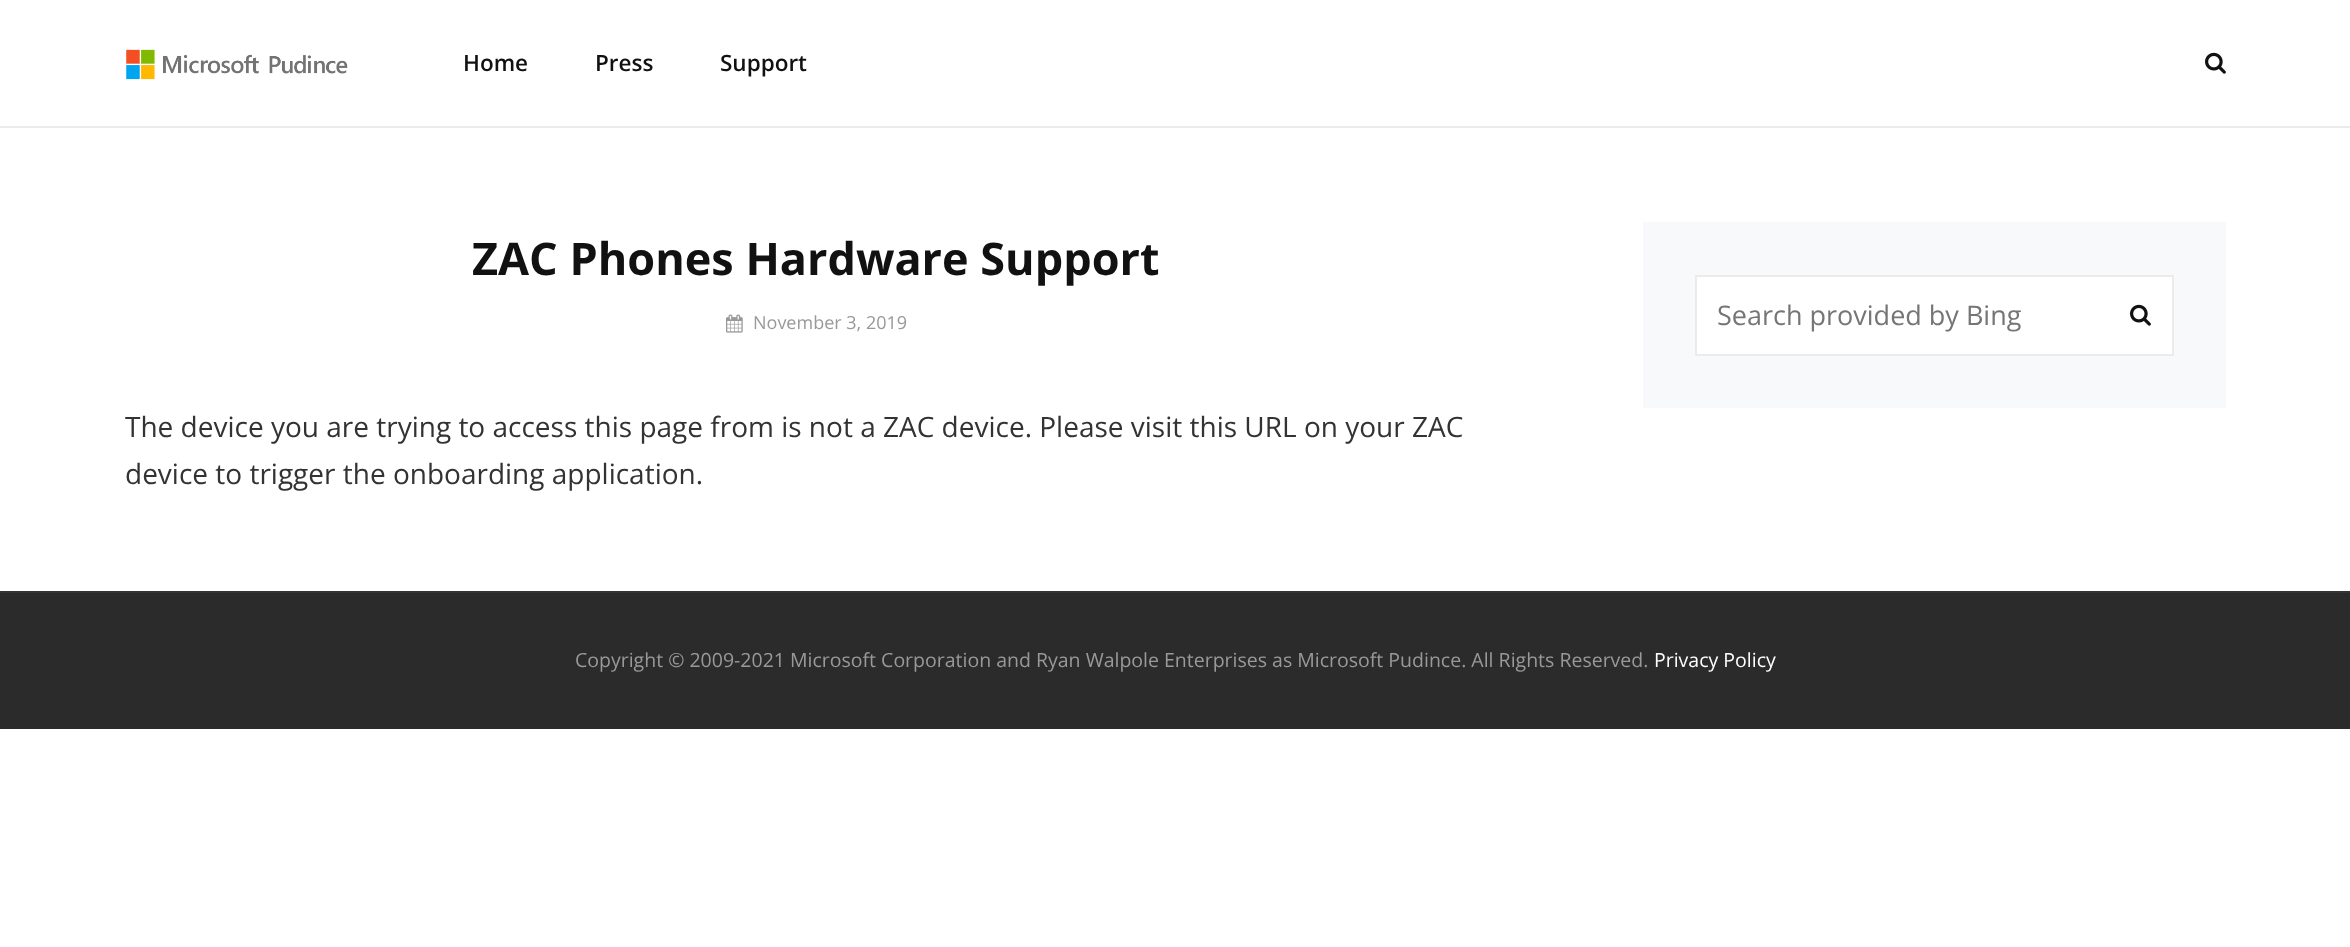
async function draw(canvas) {
	canvas.width = 2350;
	canvas.height = 947;
	const c = canvas.getContext('2d');
	c.miterLimit = 4;
	c.fontKerning = 'normal';
	async function loadImage(src) {
		const img = new Image();
		img.src = src;
		await img.decode();
		return img;
	}

	c.fillStyle = '#fff';
	c.fillRect(0, 0, 2350, 947);
	c.fillStyle = '#ebebeb';
	c.fillRect(0, 126, 2350, 2);
	c.drawImage(await loadImage('img1.png'), 126, 49, 222, 31);
	c.font = '600 22.5px Open Sans';
	c.fillStyle = '#111';
	for (const [text, x, y] of [
		['Home', 463, 71],
		['Press', 595, 71],
		['Support', 720, 71],
	]) {
		c.fillText(text, x, y);
	}
	c.drawImage(await loadImage('img2.png'), 2205, 52, 21, 22);
	c.font = 'bold 45px Open Sans';
	c.fillText('ZAC Phones Hardware Support', 472, 275);
	c.drawImage(await loadImage('img3.png'), 726, 314, 17, 19);
	c.font = '18px Open Sans';
	c.fillStyle = '#999';
	c.fillText('November 3, 2019', 753, 329);
	c.font = '28px Open Sans';
	c.fillStyle = '#333';
	c.fillText('The device you are trying to access this page from is not a ZAC device. Please visit this URL on your ZAC', 125, 437);
	c.fillText('device to trigger the onboarding application.', 125, 484);
	c.fillStyle = '#f8f9fb';
	c.fillRect(1643, 222, 583, 186);
	c.fillStyle = '#fff';
	c.beginPath();
	c.rect(1696, 276, 477, 79);
	c.fill();
	c.strokeStyle = '#ebebeb';
	c.lineWidth = 2;
	c.stroke();
	c.font = '27px Open Sans';
	c.fillStyle = '#757575';
	c.fillText('Search provided by Bing', 1717, 325);
	c.drawImage(await loadImage('img2.png'), 2130, 304, 21, 22);
	c.fillStyle = '#2b2b2b';
	c.fillRect(0, 593, 2350, 136);
	c.fillStyle = '#343434';
	c.fillRect(0, 591, 2350, 2);
	c.font = '19.5px Open Sans';
	c.fillStyle = '#999';
	c.fillText('Copyright © 2009-2021 Microsoft Corporation and Ryan Walpole Enterprises as Microsoft Pudince. All Rights Reserved.', 575, 667);
	c.fillStyle = '#fff';
	c.fillText('Privacy Policy', 1654, 667);
}

draw(document.querySelector('canvas'));
